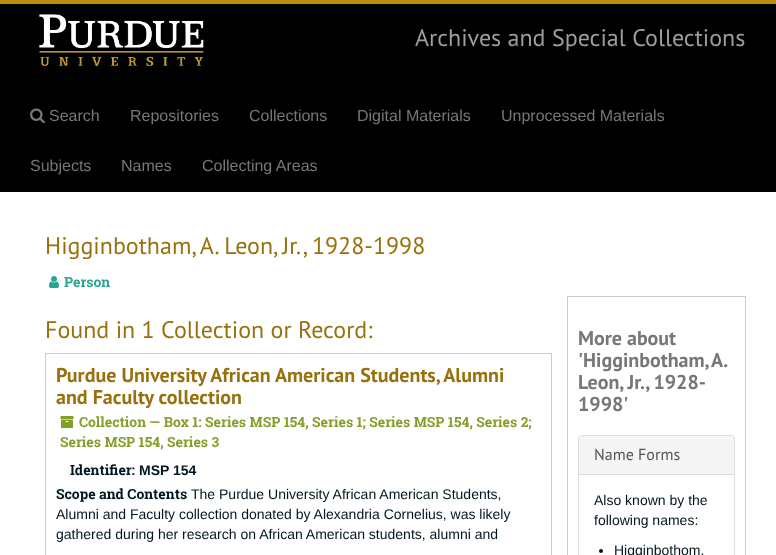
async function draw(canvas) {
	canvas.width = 776;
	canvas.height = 555;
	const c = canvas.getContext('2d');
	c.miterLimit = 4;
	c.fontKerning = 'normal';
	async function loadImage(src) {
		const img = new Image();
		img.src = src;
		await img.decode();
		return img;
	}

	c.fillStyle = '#fff';
	c.fillRect(0, 0, 776, 555);
	c.fillStyle = '#000';
	c.fillRect(0, 4, 776, 188);
	c.fillStyle = '#bb8d0a';
	c.fillRect(0, 0, 776, 4);
	c.drawImage(await loadImage('img1.png'), 39, 14, 165, 52);
	c.font = '24px PT Sans';
	c.fillStyle = '#9e9e9e';
	c.fillText('Archives and Special Collections', 415, 46);
	c.drawImage(await loadImage('img2.png'), 30, 108, 15, 16);
	c.font = '16px Liberation Sans';
	c.fillStyle = '#777';
	for (const [text, x, y] of [
		['Search', 49, 121],
		['Repositories', 130, 121],
		['Collections', 249, 121],
		['Digital Materials', 357, 121],
		['Unprocessed Materials', 501, 121],
		['Subjects', 30, 171],
		['Names', 121, 171],
		['Collecting Areas', 202, 171],
	]) {
		c.fillText(text, x, y);
	}
	c.font = '24px PT Sans';
	c.fillStyle = '#98700d';
	c.fillText('Higginbotham, A. Leon, Jr., 1928-1998', 45, 254);
	c.drawImage(await loadImage('img3.png'), 49, 276, 10, 12);
	c.font = 'bold 14px Roboto Slab';
	c.fillStyle = '#29a592';
	c.fillText('Person', 64, 287);
	c.font = '24px PT Sans';
	c.fillStyle = '#98700d';
	c.fillText('Found in 1 Collection or Record:', 45, 338);
	c.strokeStyle = '#ccc';
	c.strokeRect(45.5, 353.5, 506, 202);
	c.font = 'bold 20px PT Sans';
	c.fillText('Purdue University African American Students, Alumni', 56, 382);
	c.fillText('and Faculty collection', 56, 404);
	c.drawImage(await loadImage('img4.png'), 60, 416, 14, 12);
	c.font = 'bold 14px Roboto Slab';
	c.fillStyle = '#849e2a';
	c.fillText('Collection — Box 1: Series MSP 154, Series 1; Series MSP 154, Series 2;', 79, 427);
	c.fillText('Series MSP 154, Series 3', 60, 447);
	c.fillStyle = '#00171f';
	c.fillText('Identifier:', 70, 475);
	c.font = 'bold 14px Liberation Sans';
	c.fillText('MSP 154', 139, 475);
	c.font = 'bold 14px Roboto Slab';
	c.fillText('Scope and Contents', 56, 499);
	c.font = '14px Liberation Sans';
	for (const [text, x, y] of [
		['The Purdue University African American Students,', 191, 499],
		['Alumni and Faculty collection donated by Alexandria Cornelius, was likely', 56, 519],
		['gathered during her research on African American students, alumni and', 56, 539],
	]) {
		c.fillText(text, x, y);
	}
	c.strokeRect(567.5, 296.5, 178, 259);
	c.font = 'bold 20px PT Sans';
	c.fillStyle = '#777';
	c.fillText('More about', 578, 345);
	c.wordSpacing = '-1px';
	c.fillText('\'Higginbotham, A.', 578, 367);
	c.wordSpacing = '0px';
	c.fillText('Leon, Jr., 1928-', 578, 389);
	c.fillText('1998\'', 578, 411);
	c.beginPath();
	c.roundRect(578.5, 435.5, 156, 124, 3.5);
	c.strokeStyle = '#ddd';
	c.stroke();
	c.fillStyle = '#f5f5f5';
	c.beginPath();
	c.roundRect(579, 436, 155, 38, [3, 3, 0, 0]);
	c.fill();
	c.font = '16px PT Sans';
	c.fillStyle = '#555';
	c.fillText('Name Forms', 594, 460);
	c.fillStyle = '#ddd';
	c.fillRect(579, 474, 155, 1);
	c.font = '14px Liberation Sans';
	c.fillStyle = '#00171f';
	c.fillText('Also known by the', 594, 505);
	c.fillText('following names:', 594, 525);
	c.beginPath();
	c.arc(601, 551, 2, 0, 2 * Math.PI);
	c.fill();
	c.fillText('Higginbothom,', 614, 555);
}

draw(document.querySelector('canvas'));
